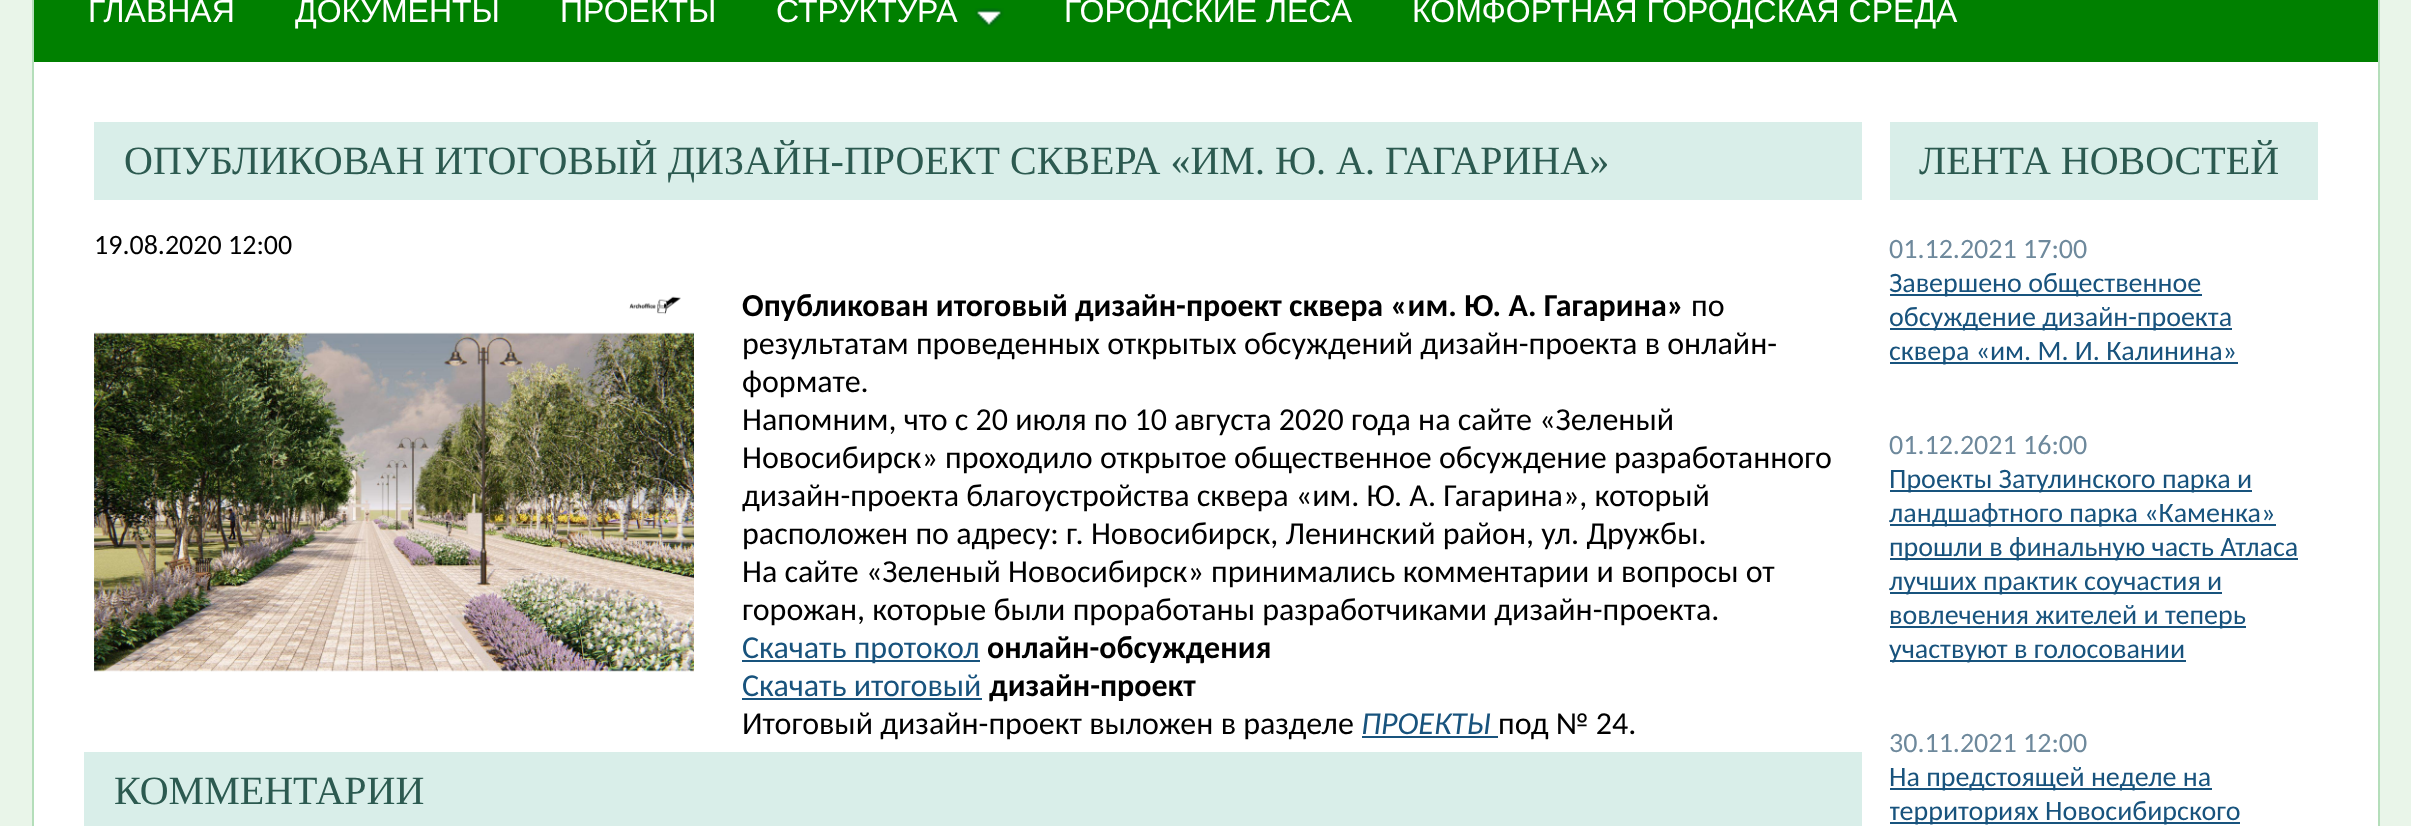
async function draw(canvas) {
	canvas.width = 2411;
	canvas.height = 826;
	const c = canvas.getContext('2d');
	c.miterLimit = 4;
	c.fontKerning = 'normal';
	async function loadImage(src) {
		const img = new Image();
		img.src = src;
		await img.decode();
		return img;
	}

	c.fillStyle = '#e9f5e9';
	c.fillRect(0, 0, 2411, 826);
	for (const [x, y, w, h, color] of [
		[34, 62, 2344, 764, '#fff'],
		[2378, 0, 2, 826, '#b4deba'],
		[32, 0, 2, 826, '#b4deba'],
		[34, 0, 2344, 62, '#008000'],
	]) {
		c.fillStyle = color;
		c.fillRect(x, y, w, h);
	}
	c.font = '32px Liberation Sans';
	c.fillStyle = '#fff';
	for (const [text, x, y] of [
		['ГЛАВНАЯ', 88, 22],
		['ДОКУМЕНТЫ', 295, 22],
		['ПРОЕКТЫ', 560, 22],
	]) {
		c.fillText(text, x, y);
	}
	c.drawImage(await loadImage('img1.png'), 975, 8, 29, 19);
	for (const [text, x, y] of [
		['СТРУКТУРА', 776, 22],
		['ГОРОДСКИЕ ЛЕСА', 1064, 22],
		['КОМФОРТНАЯ ГОРОДСКАЯ СРЕДА', 1412, 22],
	]) {
		c.fillText(text, x, y);
	}
	c.fillStyle = '#d9eee9';
	c.fillRect(94, 122, 1768, 78);
	c.font = '40px Liberation Serif';
	c.fillStyle = '#2c5a50';
	c.fillText('ОПУБЛИКОВАН ИТОГОВЫЙ ДИЗАЙН-ПРОЕКТ СКВЕРА «ИМ. Ю. А. ГАГАРИНА»', 124, 174);
	c.font = '28px Carlito';
	c.fillStyle = '#000';
	c.fillText('19.08.2020 12:00', 94, 254);
	c.drawImage(await loadImage('img2.png'), 94, 296, 600, 376);
	c.font = 'bold 32px Carlito';
	c.fillText('Опубликован итоговый дизайн-проект сквера «им. Ю. А. Гагарина»', 742, 316);
	c.font = '32px Carlito';
	for (const [text, x, y] of [
		['по', 1691, 316],
		['результатам проведенных открытых обсуждений дизайн-проекта в онлайн-', 742, 354],
		['формате.', 742, 392],
		['Напомним, что с 20 июля по 10 августа 2020 года на сайте «Зеленый', 742, 430],
		['Новосибирск» проходило открытое общественное обсуждение разработанного', 742, 468],
		['дизайн-проекта благоустройства сквера «им. Ю. А. Гагарина», который', 742, 506],
		['расположен по адресу: г. Новосибирск, Ленинский район, ул. Дружбы.', 742, 544],
		['На сайте «Зеленый Новосибирск» принимались комментарии и вопросы от', 742, 582],
		['горожан, которые были проработаны разработчиками дизайн-проекта.', 742, 620],
	]) {
		c.fillText(text, x, y);
	}
	c.fillStyle = '#18537d';
	c.fillRect(742, 660, 238, 2);
	c.fillText('Скачать протокол', 742, 658);
	c.font = 'bold 32px Carlito';
	c.fillStyle = '#000';
	c.fillText('онлайн-обсуждения', 987, 658);
	c.font = '32px Carlito';
	c.fillStyle = '#18537d';
	c.fillText('Скачать итоговый', 742, 696);
	c.fillRect(742, 698, 240, 2);
	c.font = 'bold 32px Carlito';
	c.fillStyle = '#000';
	c.fillText('дизайн-проект', 989, 696);
	c.font = '32px Carlito';
	c.fillText('Итоговый дизайн-проект выложен в разделе', 742, 734);
	c.font = 'italic 32px Carlito';
	c.fillStyle = '#18537d';
	c.fillText('ПРОЕК', 1361, 734);
	c.fillRect(1362, 736, 136, 2);
	c.fillText('ТЫ', 1451, 734);
	c.font = '32px Carlito';
	c.fillStyle = '#000';
	c.fillText('под № 24.', 1498, 734);
	c.fillStyle = '#d9eee9';
	c.fillRect(84, 752, 1778, 74);
	c.font = '40px Liberation Serif';
	c.fillStyle = '#2c5a50';
	c.fillText('КОММЕНТАРИИ', 114, 804);
	c.fillStyle = '#d9eee9';
	c.fillRect(1890, 122, 428, 78);
	c.fillStyle = '#2c5a50';
	c.fillText('ЛЕНТА НОВОСТЕЙ', 1919, 174);
	c.font = '28px Carlito';
	c.fillStyle = '#6e899c';
	c.fillText('01.12.2021 17:00', 1889, 258);
	c.fillStyle = '#18537d';
	c.fillRect(1890, 294, 312, 2);
	c.fillText('Завершено общественное', 1889, 292);
	c.fillRect(1890, 328, 342, 2);
	c.fillText('обсуждение дизайн-проекта', 1889, 326);
	c.fillRect(1890, 362, 348, 2);
	c.fillText('сквера «им. М. И. Калинина»', 1889, 360);
	c.fillStyle = '#6e899c';
	c.fillText('01.12.2021 16:00', 1889, 454);
	c.fillStyle = '#18537d';
	c.fillRect(1890, 490, 362, 2);
	c.fillText('Проекты Затулинского парка и', 1889, 488);
	c.fillRect(1890, 524, 386, 2);
	c.fillText('ландшафтного парка «Каменка»', 1889, 522);
	c.fillRect(1890, 558, 408, 2);
	c.fillText('прошли в финальную часть Атласа', 1889, 556);
	c.fillRect(1890, 592, 332, 2);
	c.fillText('лучших практик соучастия и', 1889, 590);
	c.fillRect(1890, 626, 356, 2);
	c.fillText('вовлечения жителей и теперь', 1889, 624);
	c.fillRect(1890, 660, 296, 2);
	c.fillText('участвуют в голосовании', 1889, 658);
	c.fillStyle = '#6e899c';
	c.fillText('30.11.2021 12:00', 1889, 752);
	c.fillStyle = '#18537d';
	c.fillRect(1890, 788, 322, 2);
	c.fillText('На предстоящей неделе на', 1889, 786);
	c.fillRect(1890, 822, 350, 2);
	c.save();
	c.beginPath();
	c.rect(1890, 714, 428, 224);
	c.clip();
	c.fillText('территориях Новосибирского', 1889, 820);
	c.restore();
}

draw(document.querySelector('canvas'));
